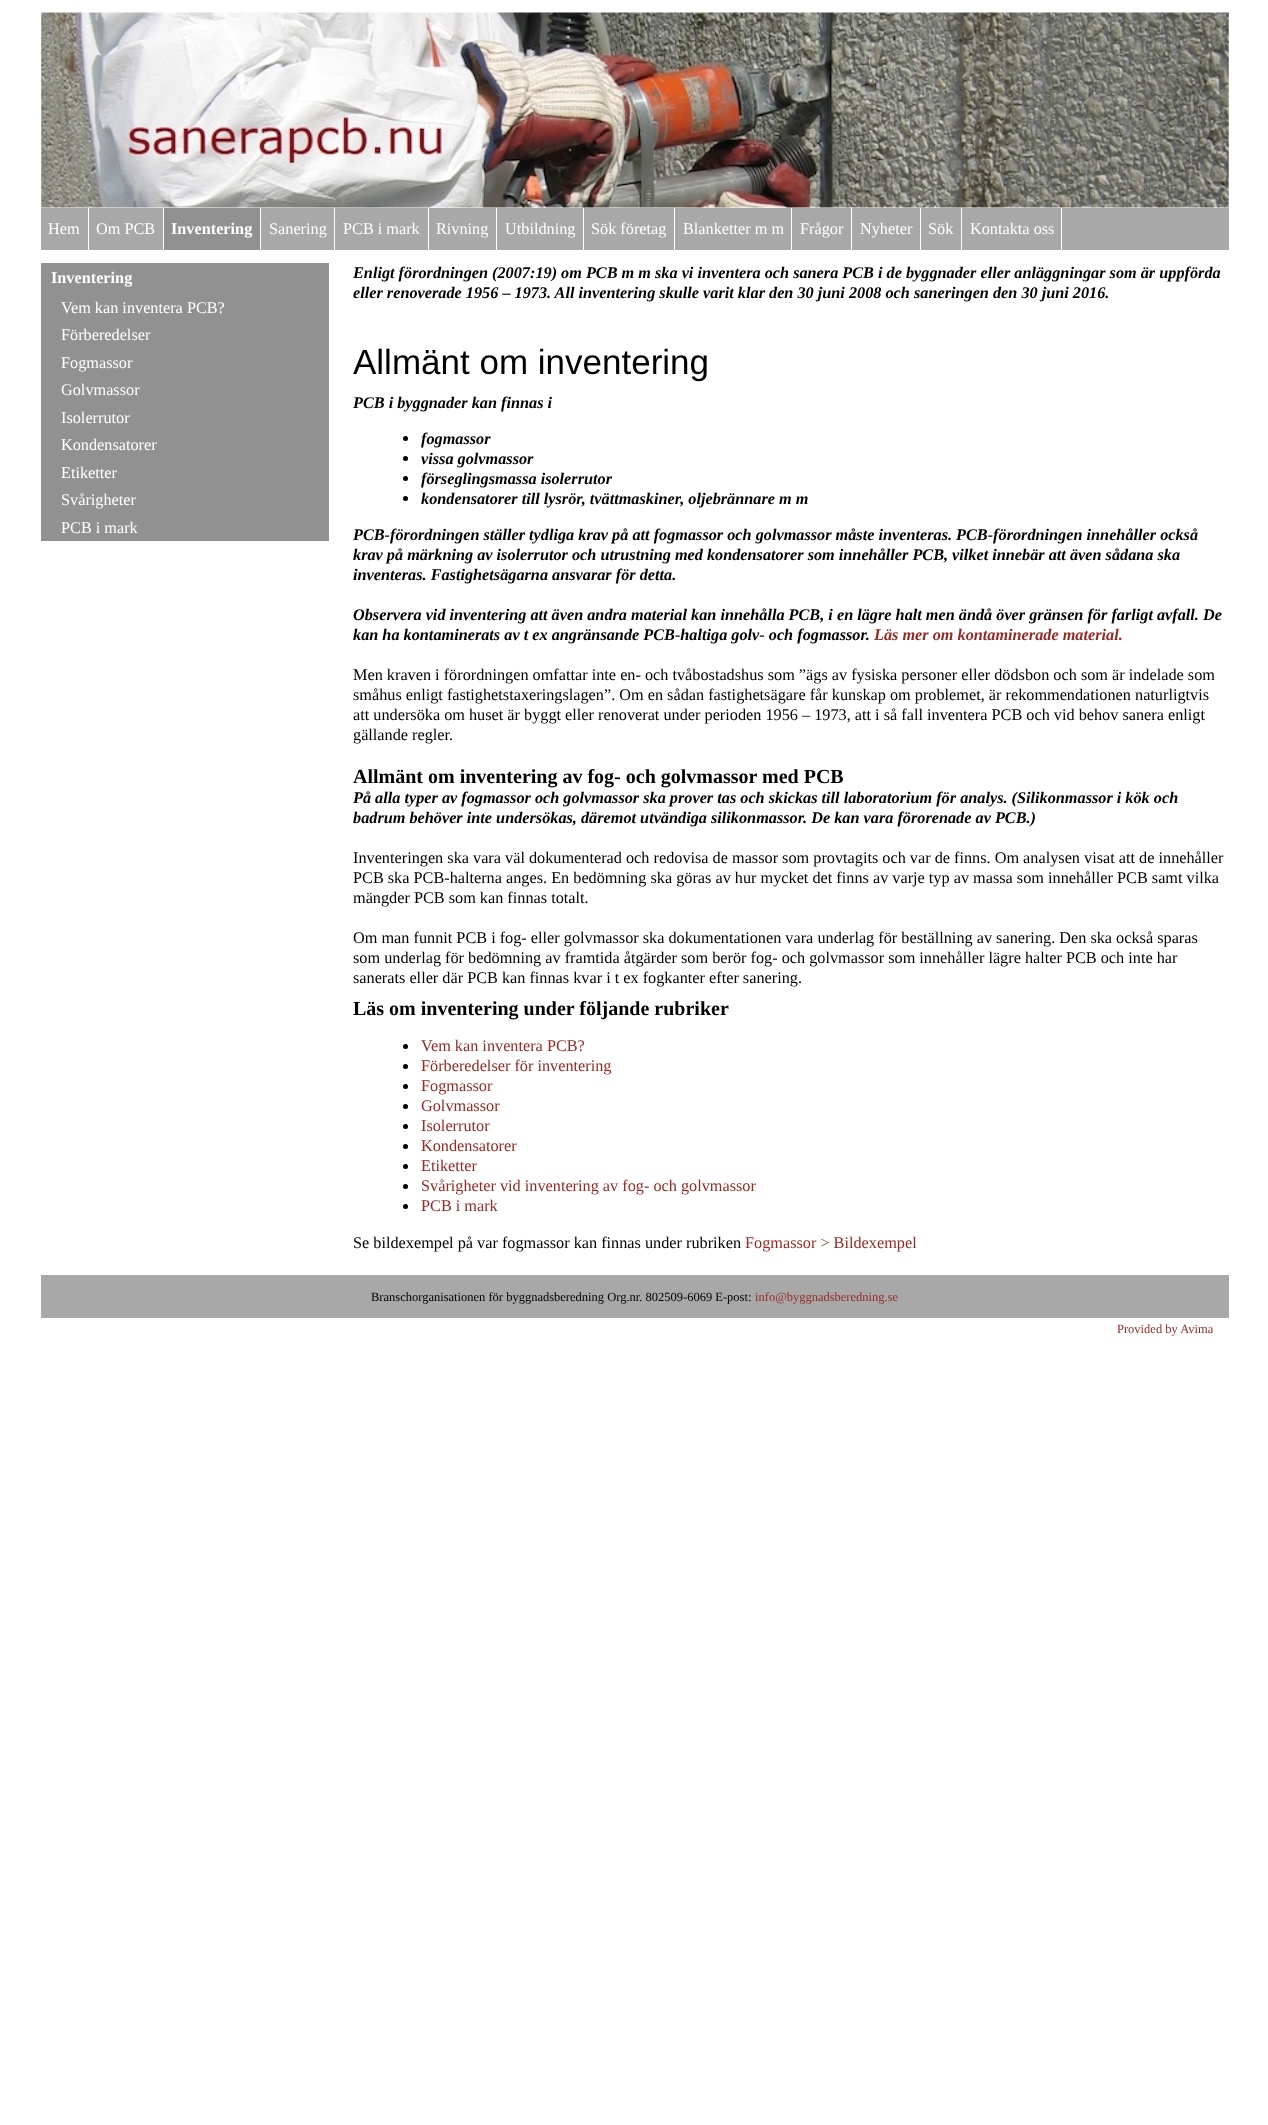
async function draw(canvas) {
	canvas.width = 1268;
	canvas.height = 2125;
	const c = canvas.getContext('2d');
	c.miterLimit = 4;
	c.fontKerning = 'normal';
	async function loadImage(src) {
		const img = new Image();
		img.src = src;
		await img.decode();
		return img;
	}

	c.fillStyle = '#fff';
	c.fillRect(0, 0, 1268, 2125);
	c.drawImage(await loadImage('img1.png'), 41, 12, 1188, 196);
	c.fillStyle = '#a8a8a8';
	c.fillRect(41, 208, 1188, 42);
	c.fillStyle = '#fff';
	c.fillRect(88, 208, 1, 43);
	c.font = '16.25px Liberation Serif';
	c.fillText('Hem', 48, 234);
	c.fillRect(163, 208, 1, 43);
	c.fillText('Om PCB', 96, 234);
	c.fillStyle = '#919191';
	c.fillRect(164, 208, 96, 42);
	c.fillStyle = '#fff';
	c.fillRect(260, 208, 1, 43);
	c.font = 'bold 16.25px Liberation Serif';
	c.fillText('Inventering', 171, 234);
	c.fillRect(334, 208, 1, 43);
	c.font = '16.25px Liberation Serif';
	c.fillText('Sanering', 269, 234);
	c.fillRect(428, 208, 1, 43);
	c.fillText('PCB i mark', 343, 234);
	c.fillRect(496, 208, 1, 43);
	c.fillText('Rivning', 436, 234);
	c.fillRect(583, 208, 1, 43);
	c.fillText('Utbildning', 505, 234);
	c.fillRect(674, 208, 1, 43);
	c.fillText('Sök företag', 591, 234);
	c.fillRect(791, 208, 1, 43);
	c.fillText('Blanketter m m', 683, 234);
	c.fillRect(851, 208, 1, 43);
	c.fillText('Frågor', 800, 234);
	c.fillRect(920, 208, 1, 43);
	c.fillText('Nyheter', 860, 234);
	c.fillRect(961, 208, 1, 43);
	c.fillText('Sök', 928, 234);
	c.fillRect(1061, 208, 1, 43);
	c.fillText('Kontakta oss', 970, 234);
	c.fillStyle = '#919191';
	c.fillRect(41, 263, 288, 278);
	c.font = 'bold 16.25px Liberation Serif';
	c.fillStyle = '#fff';
	c.fillText('Inventering', 51, 283);
	c.font = '16.25px Liberation Serif';
	for (const [text, x, y] of [
		['Vem kan inventera PCB?', 61, 313],
		['Förberedelser', 61, 340],
		['Fogmassor', 61, 368],
		['Golvmassor', 61, 395],
		['Isolerrutor', 61, 423],
		['Kondensatorer', 61, 450],
		['Etiketter', 61, 478],
		['Svårigheter', 61, 505],
		['PCB i mark', 61, 533],
	]) {
		c.fillText(text, x, y);
	}
	c.font = 'italic bold 16.25px Liberation Serif';
	c.fillStyle = '#000';
	c.fillText('Enligt förordningen (2007:19) om PCB m m ska vi inventera och sanera PCB i de byggnader eller anläggningar som är uppförda', 353, 278);
	c.fillText('eller renoverade 1956 – 1973. All inventering skulle varit klar den 30 juni 2008 och saneringen den 30 juni 2016.', 353, 298);
	c.font = '35px Liberation Sans';
	c.fillText('Allmänt om inventering', 353, 374);
	c.font = 'italic bold 16.25px Liberation Serif';
	c.fillText('PCB i byggnader kan finnas i', 353, 408);
	c.beginPath();
	c.arc(405.5, 438.5, 2.5, 0, 2 * Math.PI);
	c.fill();
	c.fillText('fogmassor', 421, 444);
	c.beginPath();
	c.arc(405.5, 458.5, 2.5, 0, 2 * Math.PI);
	c.fill();
	c.fillText('vissa golvmassor', 421, 464);
	c.beginPath();
	c.arc(405.5, 478.5, 2.5, 0, 2 * Math.PI);
	c.fill();
	c.fillText('förseglingsmassa isolerrutor', 421, 484);
	c.beginPath();
	c.arc(405.5, 498.5, 2.5, 0, 2 * Math.PI);
	c.fill();
	for (const [text, x, y] of [
		['kondensatorer till lysrör, tvättmaskiner, oljebrännare m m', 421, 504],
		['PCB-förordningen ställer tydliga krav på att fogmassor och golvmassor måste inventeras. PCB-förordningen innehåller också', 353, 540],
		['krav på märkning av isolerrutor och utrustning med kondensatorer som innehåller PCB, vilket innebär att även sådana ska', 353, 560],
		['inventeras. Fastighetsägarna ansvarar för detta.', 353, 580],
		['Observera vid inventering att även andra material kan innehålla PCB, i en lägre halt men ändå över gränsen för farligt avfall. De', 353, 620],
		['kan ha kontaminerats av t ex angränsande PCB-haltiga golv- och fogmassor.', 353, 640],
	]) {
		c.fillText(text, x, y);
	}
	c.fillStyle = '#942a24';
	c.fillText('Läs mer om kontaminerade material.', 874, 640);
	c.font = '16.25px Liberation Serif';
	c.fillStyle = '#000';
	for (const [text, x, y] of [
		['Men kraven i förordningen omfattar inte en- och tvåbostadshus som ”ägs av fysiska personer eller dödsbon och som är indelade som', 353, 680],
		['småhus enligt fastighetstaxeringslagen”. Om en sådan fastighetsägare får kunskap om problemet, är rekommendationen naturligtvis', 353, 700],
		['att undersöka om huset är byggt eller renoverat under perioden 1956 – 1973, att i så fall inventera PCB och vid behov sanera enligt', 353, 720],
		['gällande regler.', 353, 740],
	]) {
		c.fillText(text, x, y);
	}
	c.font = 'bold 20px Liberation Serif';
	c.fillText('Allmänt om inventering av fog- och golvmassor med PCB', 353, 783);
	c.font = 'italic bold 16.25px Liberation Serif';
	c.fillText('På alla typer av fogmassor och golvmassor ska prover tas och skickas till laboratorium för analys. (Silikonmassor i kök och', 353, 803);
	c.fillText('badrum behöver inte undersökas, däremot utvändiga silikonmassor. De kan vara förorenade av PCB.)', 353, 823);
	c.font = '16.25px Liberation Serif';
	for (const [text, x, y] of [
		['Inventeringen ska vara väl dokumenterad och redovisa de massor som provtagits och var de finns. Om analysen visat att de innehåller', 353, 863],
		['PCB ska PCB-halterna anges. En bedömning ska göras av hur mycket det finns av varje typ av massa som innehåller PCB samt vilka', 353, 883],
		['mängder PCB som kan finnas totalt.', 353, 903],
		['Om man funnit PCB i fog- eller golvmassor ska dokumentationen vara underlag för beställning av sanering. Den ska också sparas', 353, 943],
		['som underlag för bedömning av framtida åtgärder som berör fog- och golvmassor som innehåller lägre halter PCB och inte har', 353, 963],
		['sanerats eller där PCB kan finnas kvar i t ex fogkanter efter sanering.', 353, 983],
	]) {
		c.fillText(text, x, y);
	}
	c.font = 'bold 20px Liberation Serif';
	c.fillText('Läs om inventering under följande rubriker', 353, 1015);
	c.beginPath();
	c.arc(405.5, 1046.5, 2.5, 0, 2 * Math.PI);
	c.fill();
	c.font = '16.25px Liberation Serif';
	c.fillStyle = '#942a24';
	c.fillText('Vem kan inventera PCB?', 421, 1051);
	c.fillStyle = '#000';
	c.beginPath();
	c.arc(405.5, 1066.5, 2.5, 0, 2 * Math.PI);
	c.fill();
	c.fillStyle = '#942a24';
	c.fillText('Förberedelser för inventering', 421, 1071);
	c.fillStyle = '#000';
	c.beginPath();
	c.arc(405.5, 1086.5, 2.5, 0, 2 * Math.PI);
	c.fill();
	c.fillStyle = '#942a24';
	c.fillText('Fogmassor', 421, 1091);
	c.fillStyle = '#000';
	c.beginPath();
	c.arc(405.5, 1106.5, 2.5, 0, 2 * Math.PI);
	c.fill();
	c.fillStyle = '#942a24';
	c.fillText('Golvmassor', 421, 1111);
	c.fillStyle = '#000';
	c.beginPath();
	c.arc(405.5, 1126.5, 2.5, 0, 2 * Math.PI);
	c.fill();
	c.fillStyle = '#942a24';
	c.fillText('Isolerrutor', 421, 1131);
	c.fillStyle = '#000';
	c.beginPath();
	c.arc(405.5, 1146.5, 2.5, 0, 2 * Math.PI);
	c.fill();
	c.fillStyle = '#942a24';
	c.fillText('Kondensatorer', 421, 1151);
	c.fillStyle = '#000';
	c.beginPath();
	c.arc(405.5, 1166.5, 2.5, 0, 2 * Math.PI);
	c.fill();
	c.fillStyle = '#942a24';
	c.fillText('Etiketter', 421, 1171);
	c.fillStyle = '#000';
	c.beginPath();
	c.arc(405.5, 1186.5, 2.5, 0, 2 * Math.PI);
	c.fill();
	c.fillStyle = '#942a24';
	c.fillText('Svårigheter vid inventering av fog- och golvmassor', 421, 1191);
	c.fillStyle = '#000';
	c.beginPath();
	c.arc(405.5, 1206.5, 2.5, 0, 2 * Math.PI);
	c.fill();
	c.fillStyle = '#942a24';
	c.fillText('PCB i mark', 421, 1211);
	c.fillStyle = '#000';
	c.fillText('Se bildexempel på var fogmassor kan finnas under rubriken', 353, 1248);
	c.fillStyle = '#942a24';
	c.fillText('Fogmassor > Bildexempel', 745, 1248);
	c.fillStyle = '#a8a8a8';
	c.fillRect(41, 1275, 1188, 43);
	c.font = '12.5px Liberation Serif';
	c.fillStyle = '#000';
	c.fillText('Branschorganisationen för byggnadsberedning Org.nr. 802509-6069 E-post:', 371, 1301);
	c.fillStyle = '#942a24';
	c.fillText('info@byggnadsberedning.se', 755, 1301);
	c.fillText('Provided by Avima', 1117, 1333);
}

draw(document.querySelector('canvas'));
